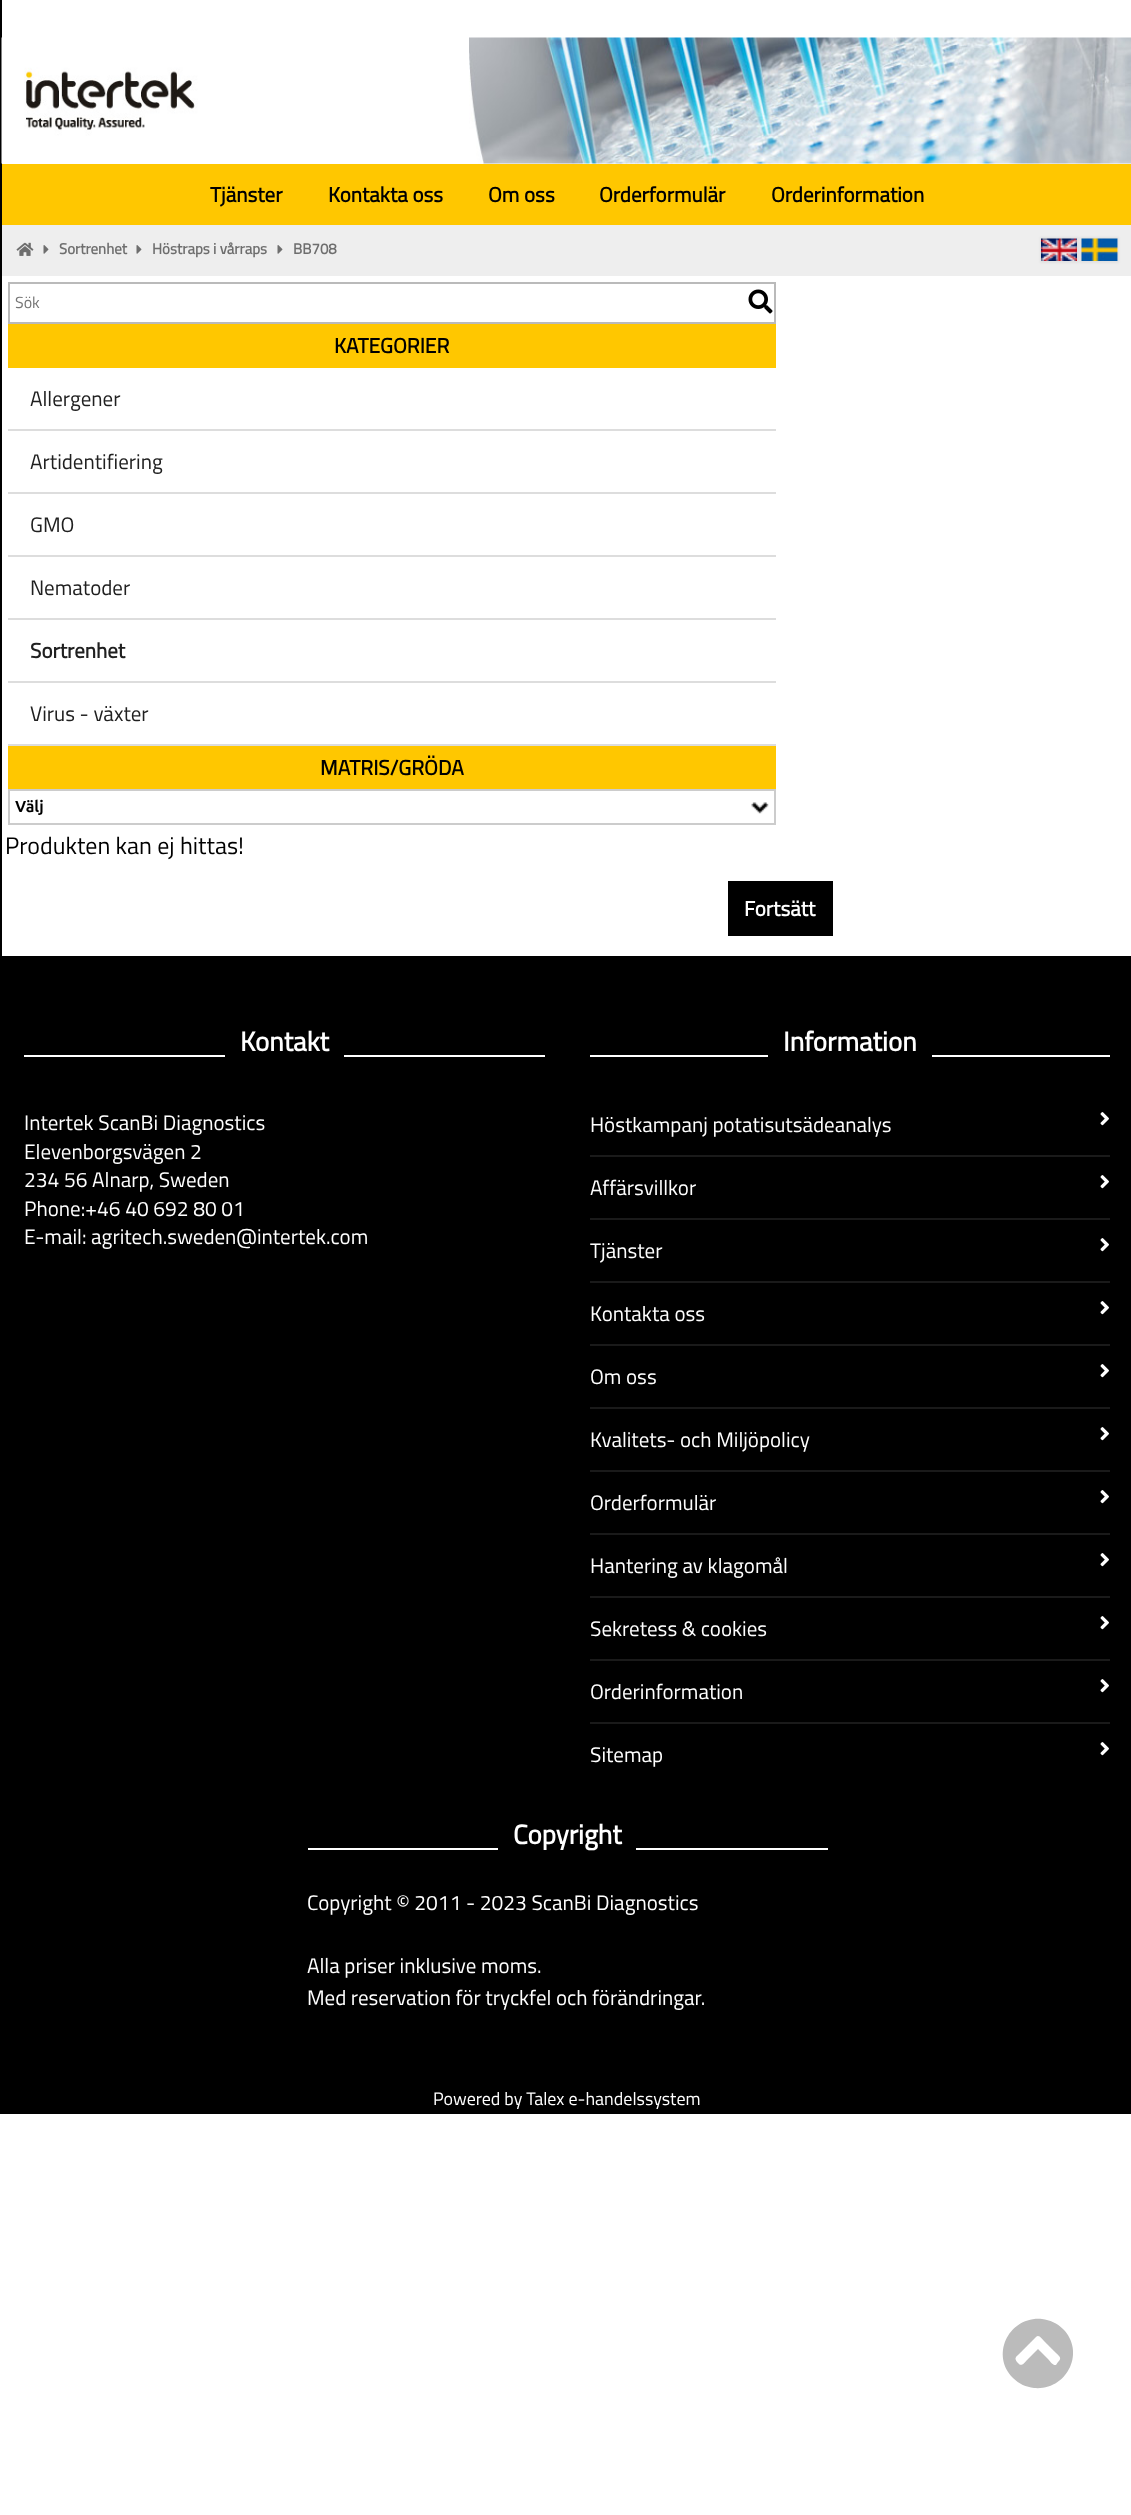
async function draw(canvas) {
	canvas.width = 1131;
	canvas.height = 2515;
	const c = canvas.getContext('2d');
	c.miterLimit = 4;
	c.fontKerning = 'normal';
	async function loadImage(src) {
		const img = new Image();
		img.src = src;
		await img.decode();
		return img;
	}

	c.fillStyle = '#fff';
	c.fillRect(0, 0, 1131, 2515);
	c.fillStyle = '#000';
	c.fillRect(0, 0, 2, 2114);
	c.drawImage(await loadImage('img1.png'), 1, 37, 1130, 127);
	c.fillStyle = '#ffc700';
	c.fillRect(2, 164, 1129, 61);
	c.font = 'bold 21px Titillium Web';
	c.fillStyle = '#000';
	for (const [text, x, y] of [
		['Tjänster', 210, 202],
		['Kontakta oss', 328, 202],
		['Om oss', 488, 202],
		['Orderformulär', 599, 202],
		['Orderinformation', 771, 202],
	]) {
		c.fillText(text, x, y);
	}
	c.fillStyle = '#eee';
	c.fillRect(2, 225, 1129, 51);
	c.drawImage(await loadImage('img2.png'), 16, 242, 18, 14);
	c.drawImage(await loadImage('img3.png'), 43, 245, 6, 9);
	c.font = 'bold 15px Titillium Web';
	c.fillStyle = '#6e6e6e';
	c.fillText('Sortrenhet', 59, 254);
	c.drawImage(await loadImage('img3.png'), 136, 245, 6, 9);
	c.fillText('Höstraps i vårraps', 152, 254);
	c.drawImage(await loadImage('img3.png'), 277, 245, 6, 9);
	c.fillText('BB708', 293, 254);
	c.drawImage(await loadImage('img4.png'), 1041, 238, 36, 23);
	c.save();
	c.beginPath();
	c.moveTo(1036, 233);
	c.lineTo(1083, 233);
	c.lineTo(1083, 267);
	c.lineTo(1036, 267);
	c.closePath();
	c.moveTo(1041, 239);
	c.lineTo(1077, 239);
	c.lineTo(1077, 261);
	c.lineTo(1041, 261);
	c.closePath();
	c.clip('evenodd');
	c.fillStyle = '#0000000d';
	c.filter = 'blur(1px)';
	c.beginPath();
	c.rect(1040, 237, 39, 26);
	c.fill();
	c.filter = 'none';
	c.restore();
	c.drawImage(await loadImage('img5.png'), 1081, 238, 37, 23);
	c.save();
	c.beginPath();
	c.moveTo(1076, 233);
	c.lineTo(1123, 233);
	c.lineTo(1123, 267);
	c.lineTo(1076, 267);
	c.closePath();
	c.moveTo(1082, 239);
	c.lineTo(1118, 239);
	c.lineTo(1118, 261);
	c.lineTo(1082, 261);
	c.closePath();
	c.clip('evenodd');
	c.fillStyle = '#0000000d';
	c.filter = 'blur(1px)';
	c.beginPath();
	c.rect(1080, 237, 39, 26);
	c.fill();
	c.filter = 'none';
	c.restore();
	c.strokeStyle = '#bababa';
	c.lineWidth = 2;
	c.strokeRect(9, 283, 766, 40);
	c.font = '16px Titillium Web';
	c.fillStyle = '#757575';
	c.fillText('Sök', 15, 308);
	c.drawImage(await loadImage('img6.png'), 748, 289, 25, 25);
	c.fillStyle = '#ffc700';
	c.fillRect(8, 324, 768, 44);
	c.font = 'bold 21px Titillium Web';
	c.fillStyle = '#000';
	c.fillText('KATEGORIER', 334, 353);
	c.fillStyle = '#ddd';
	c.fillRect(8, 429, 768, 2);
	c.font = '21px Titillium Web';
	c.fillStyle = '#202020';
	c.fillText('Allergener', 30, 406);
	c.fillStyle = '#ddd';
	c.fillRect(8, 492, 768, 2);
	c.fillStyle = '#202020';
	c.fillText('Artidentifiering', 30, 469);
	c.fillStyle = '#ddd';
	c.fillRect(8, 555, 768, 2);
	c.fillStyle = '#202020';
	c.fillText('GMO', 30, 532);
	c.fillStyle = '#ddd';
	c.fillRect(8, 618, 768, 2);
	c.fillStyle = '#202020';
	c.fillText('Nematoder', 30, 595);
	c.fillStyle = '#ddd';
	c.fillRect(8, 681, 768, 2);
	c.font = 'bold 21px Titillium Web';
	c.fillStyle = '#202020';
	c.fillText('Sortrenhet', 30, 658);
	c.fillStyle = '#ddd';
	c.fillRect(8, 744, 768, 2);
	c.font = '21px Titillium Web';
	c.fillStyle = '#202020';
	c.fillText('Virus - växter', 30, 721);
	c.fillStyle = '#ffc700';
	c.fillRect(8, 746, 768, 43);
	c.font = 'bold 21px Titillium Web';
	c.fillStyle = '#000';
	c.fillText('MATRIS/GRÖDA', 320, 775);
	c.drawImage(await loadImage('img7.png'), 751, 802, 18, 12);
	c.strokeStyle = '#ccc';
	c.strokeRect(9, 790, 766, 34);
	c.font = 'bold 16px Ubuntu';
	c.fillText('Välj', 15, 812);
	c.font = '24px Titillium Web';
	c.fillText('Produkten kan ej hittas!', 5, 854);
	c.fillRect(728, 881, 105, 55);
	c.font = 'bold 21px Titillium Web';
	c.fillStyle = '#fff';
	c.fillText('Fortsätt', 744, 916);
	c.fillStyle = '#bbb';
	c.beginPath();
	c.moveTo(1013, 2378);
	c.bezierCurveTo(990, 2355, 1009, 2316, 1042, 2319);
	c.bezierCurveTo(1050, 2320, 1057, 2323, 1063, 2329);
	c.bezierCurveTo(1086, 2352, 1067, 2391, 1034, 2388);
	c.bezierCurveTo(1026, 2387, 1019, 2384, 1013, 2378);
	c.closePath();
	c.moveTo(1036, 2337);
	c.lineTo(1023, 2350);
	c.bezierCurveTo(1017, 2357, 1012, 2357, 1019, 2364);
	c.bezierCurveTo(1022, 2367, 1026, 2361, 1028, 2359);
	c.lineTo(1038, 2349);
	c.lineTo(1048, 2359);
	c.bezierCurveTo(1049, 2360, 1053, 2366, 1056, 2365);
	c.lineTo(1058, 2362);
	c.bezierCurveTo(1062, 2358, 1060, 2357, 1056, 2353);
	c.lineTo(1044, 2341);
	c.bezierCurveTo(1042, 2339, 1039, 2334, 1036, 2337);
	c.closePath();
	c.fill();
	for (const [x, y, w, h, color] of [
		[2, 956, 1129, 1158, '#000'],
		[24, 1055, 521, 2, '#fff'],
		[225, 1055, 119, 2, '#000'],
	]) {
		c.fillStyle = color;
		c.fillRect(x, y, w, h);
	}
	c.font = 'bold 27px Titillium Web';
	c.fillStyle = '#fff';
	c.fillText('Kontakt', 240, 1051);
	c.font = '21px Titillium Web';
	for (const [text, x, y] of [
		['Intertek ScanBi Diagnostics', 24, 1130],
		['Elevenborgsvägen 2', 24, 1159],
		['234 56 Alnarp, Sweden', 24, 1187],
		['Phone:+46 40 692 80 01', 24, 1216],
		['E-mail: agritech.sweden@intertek.com', 24, 1244],
	]) {
		c.fillText(text, x, y);
	}
	c.fillRect(590, 1055, 520, 2);
	c.fillStyle = '#000';
	c.fillRect(768, 1055, 164, 2);
	c.font = 'bold 27px Titillium Web';
	c.fillStyle = '#fff';
	c.fillText('Information', 783, 1051);
	c.font = '21px Titillium Web';
	c.fillText('Höstkampanj potatisutsädeanalys', 590, 1132);
	c.drawImage(await loadImage('img8.png'), 1100, 1112, 9, 14);
	c.fillStyle = '#1a1a1a';
	c.fillRect(590, 1155, 520, 2);
	c.fillStyle = '#fff';
	c.fillText('Affärsvillkor', 590, 1195);
	c.drawImage(await loadImage('img8.png'), 1100, 1175, 9, 14);
	c.fillStyle = '#1a1a1a';
	c.fillRect(590, 1218, 520, 2);
	c.fillStyle = '#fff';
	c.fillText('Tjänster', 590, 1258);
	c.drawImage(await loadImage('img8.png'), 1100, 1238, 9, 14);
	c.fillStyle = '#1a1a1a';
	c.fillRect(590, 1281, 520, 2);
	c.fillStyle = '#fff';
	c.fillText('Kontakta oss', 590, 1321);
	c.drawImage(await loadImage('img8.png'), 1100, 1301, 9, 14);
	c.fillStyle = '#1a1a1a';
	c.fillRect(590, 1344, 520, 2);
	c.fillStyle = '#fff';
	c.fillText('Om oss', 590, 1384);
	c.drawImage(await loadImage('img8.png'), 1100, 1364, 9, 14);
	c.fillStyle = '#1a1a1a';
	c.fillRect(590, 1407, 520, 2);
	c.fillStyle = '#fff';
	c.fillText('Kvalitets- och Miljöpolicy', 590, 1447);
	c.drawImage(await loadImage('img8.png'), 1100, 1427, 9, 14);
	c.fillStyle = '#1a1a1a';
	c.fillRect(590, 1470, 520, 2);
	c.fillStyle = '#fff';
	c.fillText('Orderformulär', 590, 1510);
	c.drawImage(await loadImage('img8.png'), 1100, 1490, 9, 14);
	c.fillStyle = '#1a1a1a';
	c.fillRect(590, 1533, 520, 2);
	c.fillStyle = '#fff';
	c.fillText('Hantering av klagomål', 590, 1573);
	c.drawImage(await loadImage('img8.png'), 1100, 1553, 9, 14);
	c.fillStyle = '#1a1a1a';
	c.fillRect(590, 1596, 520, 2);
	c.fillStyle = '#fff';
	c.fillText('Sekretess & cookies', 590, 1636);
	c.drawImage(await loadImage('img8.png'), 1100, 1616, 9, 14);
	c.fillStyle = '#1a1a1a';
	c.fillRect(590, 1659, 520, 2);
	c.fillStyle = '#fff';
	c.fillText('Orderinformation', 590, 1699);
	c.drawImage(await loadImage('img8.png'), 1100, 1679, 9, 14);
	c.fillStyle = '#1a1a1a';
	c.fillRect(590, 1722, 520, 2);
	c.fillStyle = '#fff';
	c.fillText('Sitemap', 590, 1762);
	c.drawImage(await loadImage('img8.png'), 1100, 1742, 9, 14);
	c.fillRect(308, 1848, 520, 2);
	c.fillStyle = '#000';
	c.fillRect(498, 1848, 138, 2);
	c.font = 'bold 27px Titillium Web';
	c.fillStyle = '#fff';
	c.fillText('Copyright', 513, 1844);
	c.font = '21px Titillium Web';
	for (const [text, x, y] of [
		['Copyright © 2011 - 2023 ScanBi Diagnostics', 307, 1910],
		['Alla priser inklusive moms.', 307, 1973],
		['Med reservation för tryckfel och förändringar.', 307, 2005],
	]) {
		c.fillText(text, x, y);
	}
	c.font = '18px Titillium Web';
	c.fillText('Powered by Talex e-handelssystem', 433, 2105);
}

draw(document.querySelector('canvas'));
